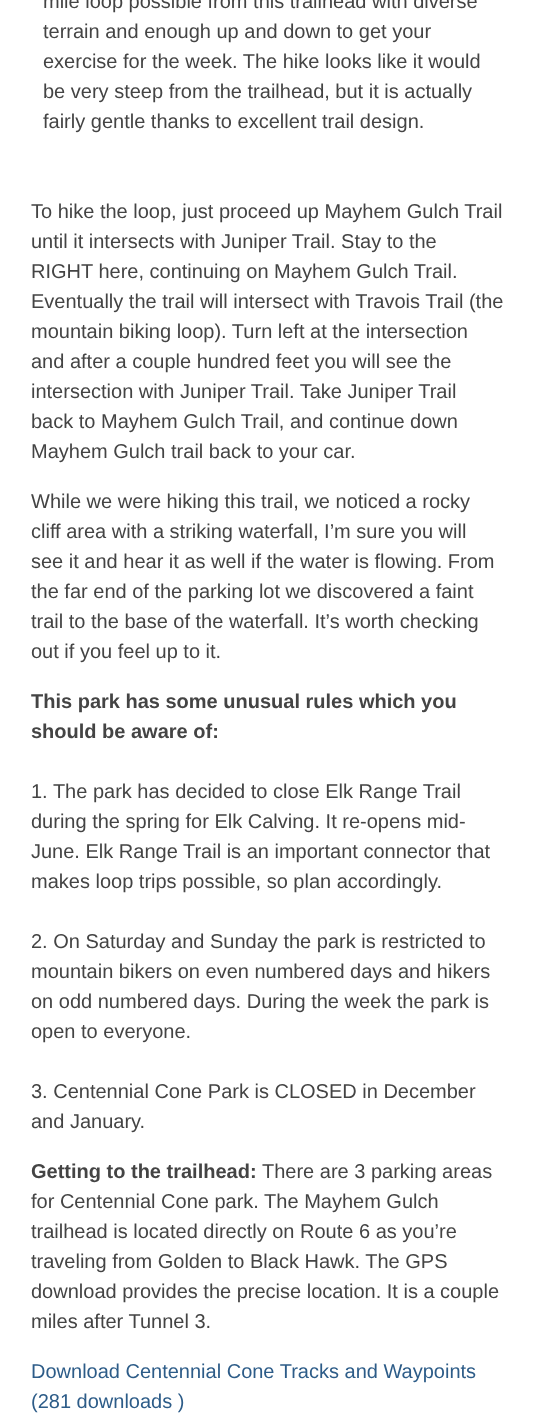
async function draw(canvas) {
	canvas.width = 535;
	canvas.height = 1413;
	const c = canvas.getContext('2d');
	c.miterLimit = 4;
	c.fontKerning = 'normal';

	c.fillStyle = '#fff';
	c.fillRect(0, 0, 535, 1413);
	c.font = '20px Liberation Sans';
	c.fillStyle = '#444';
	for (const [text, x, y] of [
		['mile loop possible from this trailhead with diverse', 43, 8],
		['terrain and enough up and down to get your', 43, 38],
		['exercise for the week. The hike looks like it would', 43, 68],
		['be very steep from the trailhead, but it is actually', 43, 98],
		['fairly gentle thanks to excellent trail design.', 43, 128],
		['To hike the loop, just proceed up Mayhem Gulch Trail', 31, 218],
		['until it intersects with Juniper Trail. Stay to the', 31, 248],
		['RIGHT here, continuing on Mayhem Gulch Trail.', 31, 278],
		['Eventually the trail will intersect with Travois Trail (the', 31, 308],
		['mountain biking loop). Turn left at the intersection', 31, 338],
		['and after a couple hundred feet you will see the', 31, 368],
		['intersection with Juniper Trail. Take Juniper Trail', 31, 398],
		['back to Mayhem Gulch Trail, and continue down', 31, 428],
		['Mayhem Gulch trail back to your car.', 31, 458],
		['While we were hiking this trail, we noticed a rocky', 31, 508],
		['cliff area with a striking waterfall, I’m sure you will', 31, 538],
		['see it and hear it as well if the water is flowing. From', 31, 568],
		['the far end of the parking lot we discovered a faint', 31, 598],
		['trail to the base of the waterfall. It’s worth checking', 31, 628],
		['out if you feel up to it.', 31, 658],
	]) {
		c.fillText(text, x, y);
	}
	c.font = 'bold 20px Liberation Sans';
	c.fillText('This park has some unusual rules which you', 31, 708);
	c.fillText('should be aware of:', 31, 738);
	c.font = '20px Liberation Sans';
	for (const [text, x, y] of [
		['1. The park has decided to close Elk Range Trail', 31, 798],
		['during the spring for Elk Calving. It re-opens mid-', 31, 828],
		['June. Elk Range Trail is an important connector that', 31, 858],
		['makes loop trips possible, so plan accordingly.', 31, 888],
		['2. On Saturday and Sunday the park is restricted to', 31, 948],
		['mountain bikers on even numbered days and hikers', 31, 978],
		['on odd numbered days. During the week the park is', 31, 1008],
		['open to everyone.', 31, 1038],
		['3. Centennial Cone Park is CLOSED in December', 31, 1098],
		['and January.', 31, 1128],
	]) {
		c.fillText(text, x, y);
	}
	c.font = 'bold 20px Liberation Sans';
	c.fillText('Getting to the trailhead:', 31, 1178);
	c.font = '20px Liberation Sans';
	for (const [text, x, y] of [
		['There are 3 parking areas', 262, 1178],
		['for Centennial Cone park. The Mayhem Gulch', 31, 1208],
		['trailhead is located directly on Route 6 as you’re', 31, 1238],
		['traveling from Golden to Black Hawk. The GPS', 31, 1268],
		['download provides the precise location. It is a couple', 31, 1298],
		['miles after Tunnel 3.', 31, 1328],
	]) {
		c.fillText(text, x, y);
	}
	c.fillStyle = '#2d5c88';
	c.fillText('Download Centennial Cone Tracks and Waypoints', 31, 1378);
	c.fillText('(281 downloads )', 31, 1408);
}

draw(document.querySelector('canvas'));
